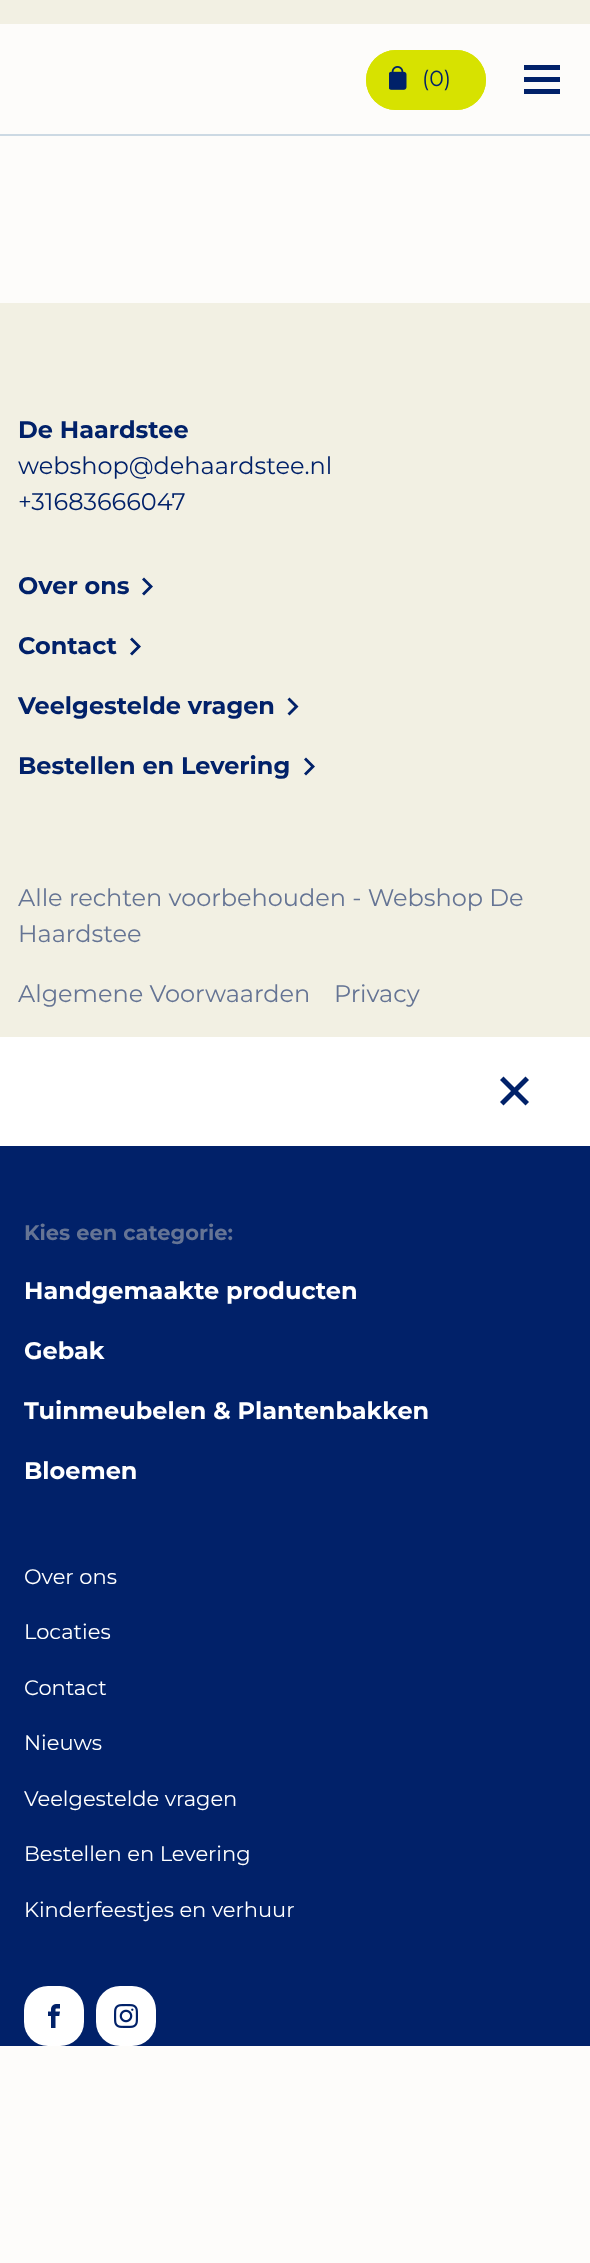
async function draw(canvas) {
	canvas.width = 590;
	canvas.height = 2263;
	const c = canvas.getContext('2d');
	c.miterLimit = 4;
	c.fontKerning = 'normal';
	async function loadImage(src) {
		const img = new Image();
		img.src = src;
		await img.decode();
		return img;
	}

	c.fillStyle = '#fdfcfa';
	c.fillRect(0, 0, 590, 2263);
	c.fillStyle = '#ccd9e3';
	c.fillRect(0, 134, 590, 2);
	c.fillStyle = '#f2f0e3';
	c.fillRect(0, 0, 590, 24);
	c.fillStyle = '#d7e200';
	c.beginPath();
	c.roundRect(366, 50, 120, 60, 30);
	c.fill();
	c.drawImage(await loadImage('img1.png'), 389, 66, 18, 24);
	c.beginPath();
	c.roundRect(367, 51, 118, 58, 29);
	c.strokeStyle = '#d7e200';
	c.lineWidth = 2;
	c.stroke();
	c.font = '22px Montserrat';
	c.fillStyle = '#012169';
	c.fillText('(0)', 422, 86);
	for (const [x, y, w, h, color] of [
		[524, 77, 36, 5, '#012169'],
		[524, 65, 36, 5, '#012169'],
		[524, 89, 36, 5, '#012169'],
		[0, 303, 590, 734, '#f2f0e3'],
	]) {
		c.fillStyle = color;
		c.fillRect(x, y, w, h);
	}
	c.font = 'bold 24px Montserrat';
	c.fillStyle = '#012169';
	c.fillText('De Haardstee', 18, 438);
	c.font = '24px Montserrat';
	c.fillText('webshop@dehaardstee.nl', 18, 474);
	c.fillText('+31683666047', 18, 510);
	c.font = 'bold 24px Montserrat';
	c.fillText('Over ons', 18, 594);
	c.beginPath();
	c.moveTo(144, 577.5);
	c.lineTo(153, 586.5);
	c.lineTo(144, 595.5);
	c.lineTo(142, 593.5);
	c.lineTo(149, 586.5);
	c.lineTo(142, 579.5);
	c.closePath();
	c.fill();
	c.fillText('Contact', 18, 654);
	c.beginPath();
	c.moveTo(132, 637.5);
	c.lineTo(141, 646.5);
	c.lineTo(132, 655.5);
	c.lineTo(130, 653.5);
	c.lineTo(137, 646.5);
	c.lineTo(130, 639.5);
	c.closePath();
	c.fill();
	c.fillText('Veelgestelde vragen', 18, 714);
	c.beginPath();
	c.moveTo(289.5, 697.5);
	c.lineTo(298.5, 706.5);
	c.lineTo(289.5, 715.5);
	c.lineTo(287.5, 713.5);
	c.lineTo(294.5, 706.5);
	c.lineTo(287.5, 699.5);
	c.closePath();
	c.fill();
	c.fillText('Bestellen en Levering', 18, 774);
	c.beginPath();
	c.moveTo(306, 757.5);
	c.lineTo(315, 766.5);
	c.lineTo(306, 775.5);
	c.lineTo(304, 773.5);
	c.lineTo(311, 766.5);
	c.lineTo(304, 759.5);
	c.closePath();
	c.fill();
	c.font = '24px Montserrat';
	c.fillStyle = '#657494';
	for (const [text, x, y] of [
		['Alle rechten voorbehouden - Webshop De', 18, 906],
		['Haardstee', 18, 942],
		['Algemene Voorwaarden', 18, 1002],
		['Privacy', 334, 1002],
	]) {
		c.fillText(text, x, y);
	}
	c.fillStyle = '#012169';
	c.fillRect(0, 1146, 590, 900);
	c.fillStyle = '#fff';
	c.fillRect(0, 1037, 590, 109);
	c.fillStyle = '#012169';
	c.beginPath();
	c.moveTo(503.5, 1076.5);
	c.lineTo(529, 1102);
	c.lineTo(525.5, 1105.5);
	c.lineTo(500, 1080);
	c.closePath();
	c.fill();
	c.beginPath();
	c.moveTo(500, 1102);
	c.lineTo(525.5, 1076.5);
	c.lineTo(529, 1080);
	c.lineTo(503.5, 1105.5);
	c.closePath();
	c.fill();
	c.font = 'bold 21px Montserrat';
	c.fillStyle = '#657494';
	c.fillText('Kies een categorie:', 24, 1240);
	c.font = 'bold 24px Montserrat';
	c.fillStyle = '#fff';
	for (const [text, x, y] of [
		['Handgemaakte producten', 24, 1299],
		['Gebak', 24, 1359],
		['Tuinmeubelen & Plantenbakken', 24, 1419],
		['Bloemen', 24, 1479],
	]) {
		c.fillText(text, x, y);
	}
	c.font = '21px Montserrat';
	for (const [text, x, y] of [
		['Over ons', 24, 1584],
		['Locaties', 24, 1639],
		['Contact', 24, 1695],
		['Nieuws', 24, 1750],
		['Veelgestelde vragen', 24, 1806],
		['Bestellen en Levering', 24, 1861],
		['Kinderfeestjes en verhuur', 24, 1917],
	]) {
		c.fillText(text, x, y);
	}
	c.beginPath();
	c.roundRect(24, 1986, 60, 60, 24);
	c.fill();
	c.drawImage(await loadImage('img2.png'), 48, 2004, 12, 24);
	c.beginPath();
	c.roundRect(96, 1986, 60, 60, 24);
	c.fill();
	c.drawImage(await loadImage('img3.png'), 114, 2004, 24, 24);
}

draw(document.querySelector('canvas'));
